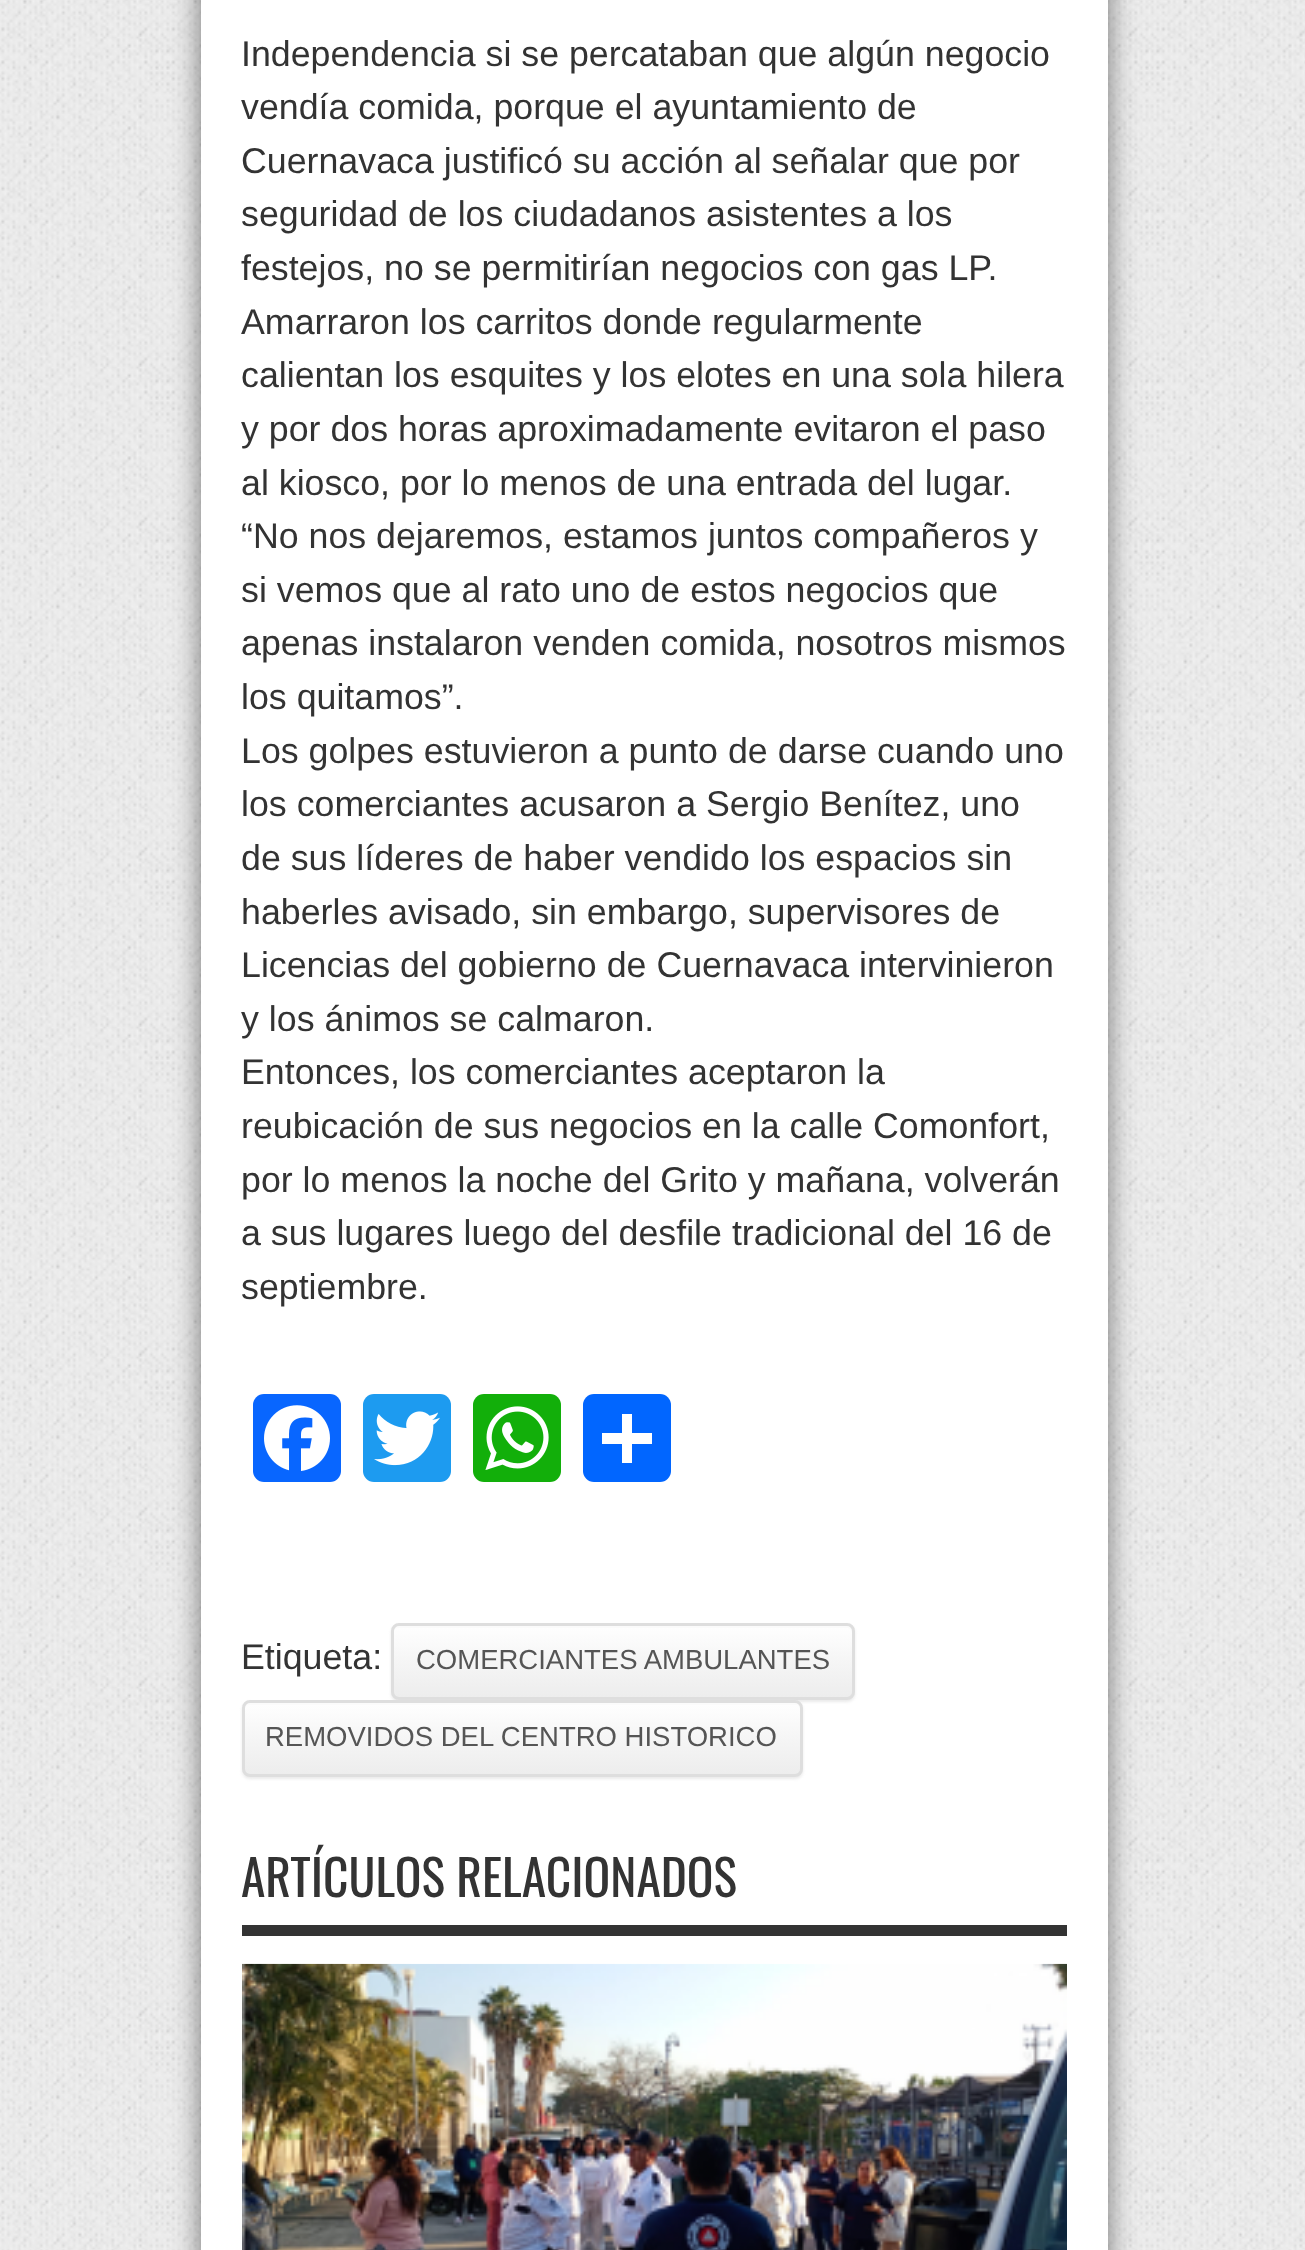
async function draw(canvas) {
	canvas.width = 1305;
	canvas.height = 2250;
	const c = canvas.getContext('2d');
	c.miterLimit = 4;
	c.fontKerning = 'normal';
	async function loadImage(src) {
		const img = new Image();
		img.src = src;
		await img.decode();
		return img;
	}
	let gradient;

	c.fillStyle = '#f2f2f2';
	c.fillRect(0, 0, 1305, 2250);
	c.drawImage(await loadImage('img1.png'), 0, 0, 1305, 2250);
	c.fillStyle = '#00000080';
	c.filter = 'blur(14px)';
	c.beginPath();
	c.rect(201, -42, 907, 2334);
	c.fill();
	c.filter = 'none';
	c.fillStyle = '#fff';
	c.fillRect(201, 0, 907, 2250);
	c.font = '35.75px Liberation Sans';
	c.fillStyle = '#333';
	for (const [text, x, y] of [
		['Independencia si se percataban que algún negocio', 241, 66],
		['vendía comida, porque el ayuntamiento de', 241, 119],
		['Cuernavaca justificó su acción al señalar que por', 241, 173],
		['seguridad de los ciudadanos asistentes a los', 241, 226],
		['festejos, no se permitirían negocios con gas LP.', 241, 280],
		['Amarraron los carritos donde regularmente', 241, 334],
		['calientan los esquites y los elotes en una sola hilera', 241, 387],
		['y por dos horas aproximadamente evitaron el paso', 241, 441],
		['al kiosco, por lo menos de una entrada del lugar.', 241, 495],
		['“No nos dejaremos, estamos juntos compañeros y', 241, 548],
		['si vemos que al rato uno de estos negocios que', 241, 602],
		['apenas instalaron venden comida, nosotros mismos', 241, 655],
		['los quitamos”.', 241, 709],
		['Los golpes estuvieron a punto de darse cuando uno', 241, 763],
		['los comerciantes acusaron a Sergio Benítez, uno', 241, 816],
		['de sus líderes de haber vendido los espacios sin', 241, 870],
		['haberles avisado, sin embargo, supervisores de', 241, 924],
		['Licencias del gobierno de Cuernavaca intervinieron', 241, 977],
		['y los ánimos se calmaron.', 241, 1031],
		['Entonces, los comerciantes aceptaron la', 241, 1084],
		['reubicación de sus negocios en la calle Comonfort,', 241, 1138],
		['por lo menos la noche del Grito y mañana, volverán', 241, 1192],
		['a sus lugares luego del desfile tradicional del 16 de', 241, 1245],
		['septiembre.', 241, 1299],
	]) {
		c.fillText(text, x, y);
	}
	c.fillStyle = '#0866ff';
	c.beginPath();
	c.roundRect(253, 1394, 88, 88, 11);
	c.fill();
	c.drawImage(await loadImage('img2.png'), 264, 1405, 66, 66);
	c.fillStyle = '#1d9bf0';
	c.beginPath();
	c.roundRect(363, 1394, 88, 88, 11);
	c.fill();
	c.drawImage(await loadImage('img3.png'), 374, 1411, 66, 55);
	c.fillStyle = '#12af0a';
	c.beginPath();
	c.roundRect(473, 1394, 88, 88, 11);
	c.fill();
	c.drawImage(await loadImage('img4.png'), 485, 1406, 64, 64);
	c.fillStyle = '#0166ff';
	c.beginPath();
	c.roundRect(583, 1394, 88, 88, 11);
	c.fill();
	c.fillStyle = '#fff';
	c.fillRect(622, 1414, 10, 49);
	c.fillRect(602, 1433, 50, 11);
	c.fillStyle = '#333';
	c.fillText('Etiqueta:', 241, 1669);
	c.fillStyle = '#eaeaea';
	c.filter = 'blur(1.5px)';
	c.beginPath();
	c.roundRect(391, 1625, 464, 77, 8);
	c.fill();
	c.filter = 'none';
	c.save();
	c.beginPath();
	c.roundRect(391, 1623, 464, 77, 8);
	c.clip();
	gradient = c.createLinearGradient(623, 1625, 623, 1697);
	gradient.addColorStop(0, '#fff');
	gradient.addColorStop(0.47, '#f6f6f6');
	gradient.addColorStop(1, '#ededed');
	c.fillStyle = gradient;
	c.fillRect(391, 1625, 464, 72);
	c.restore();
	c.fillStyle = '#fbfbfb';
	c.beginPath();
	c.moveTo(399, 1628);
	c.lineTo(847, 1628);
	c.bezierCurveTo(854, 1628, 852, 1641, 852, 1644);
	c.lineTo(852, 1694);
	c.bezierCurveTo(853, 1693, 853, 1692, 853, 1691);
	c.lineTo(853, 1631);
	c.bezierCurveTo(853, 1628, 850, 1625, 847, 1625);
	c.lineTo(399, 1625);
	c.bezierCurveTo(396, 1625, 393, 1628, 393, 1631);
	c.lineTo(393, 1634);
	c.bezierCurveTo(393, 1630, 396, 1628, 399, 1628);
	c.closePath();
	c.fill();
	c.beginPath();
	c.roundRect(392.5, 1624.5, 461, 74, 6.5);
	c.strokeStyle = '#dedede';
	c.lineWidth = 3;
	c.stroke();
	c.font = '27.5px Liberation Sans';
	c.fillStyle = '#555';
	c.fillText('COMERCIANTES AMBULANTES', 416, 1669);
	c.fillStyle = '#eaeaea';
	c.filter = 'blur(1.5px)';
	c.beginPath();
	c.roundRect(242, 1702, 561, 77, 8);
	c.fill();
	c.filter = 'none';
	c.save();
	c.beginPath();
	c.roundRect(242, 1700, 561, 77, 8);
	c.clip();
	gradient = c.createLinearGradient(523, 1702, 523, 1774);
	gradient.addColorStop(0, '#fff');
	gradient.addColorStop(0.47, '#f6f6f6');
	gradient.addColorStop(1, '#ededed');
	c.fillStyle = gradient;
	c.fillRect(242, 1702, 561, 72);
	c.restore();
	c.fillStyle = '#fbfbfb';
	c.beginPath();
	c.moveTo(250, 1705);
	c.lineTo(795, 1705);
	c.bezierCurveTo(798, 1705, 800, 1707, 800, 1710);
	c.lineTo(800, 1708);
	c.bezierCurveTo(800, 1705, 797, 1702, 794, 1702);
	c.lineTo(251, 1702);
	c.bezierCurveTo(248, 1702, 245, 1705, 245, 1708);
	c.lineTo(245, 1710);
	c.bezierCurveTo(245, 1707, 247, 1705, 250, 1705);
	c.closePath();
	c.fill();
	c.beginPath();
	c.roundRect(243.5, 1701.5, 558, 74, 6.5);
	c.stroke();
	c.fillStyle = '#555';
	c.fillText('REMOVIDOS DEL CENTRO HISTORICO', 265, 1746);
	c.fillStyle = '#333';
	c.fillRect(242, 1925, 825, 11);
	c.font = '49.5px Oswald';
	c.fillText('ARTÍCULOS RELACIONADOS', 241, 1897);
	c.drawImage(await loadImage('img5.png'), 242, 1963, 825, 287);
}

draw(document.querySelector('canvas'));
